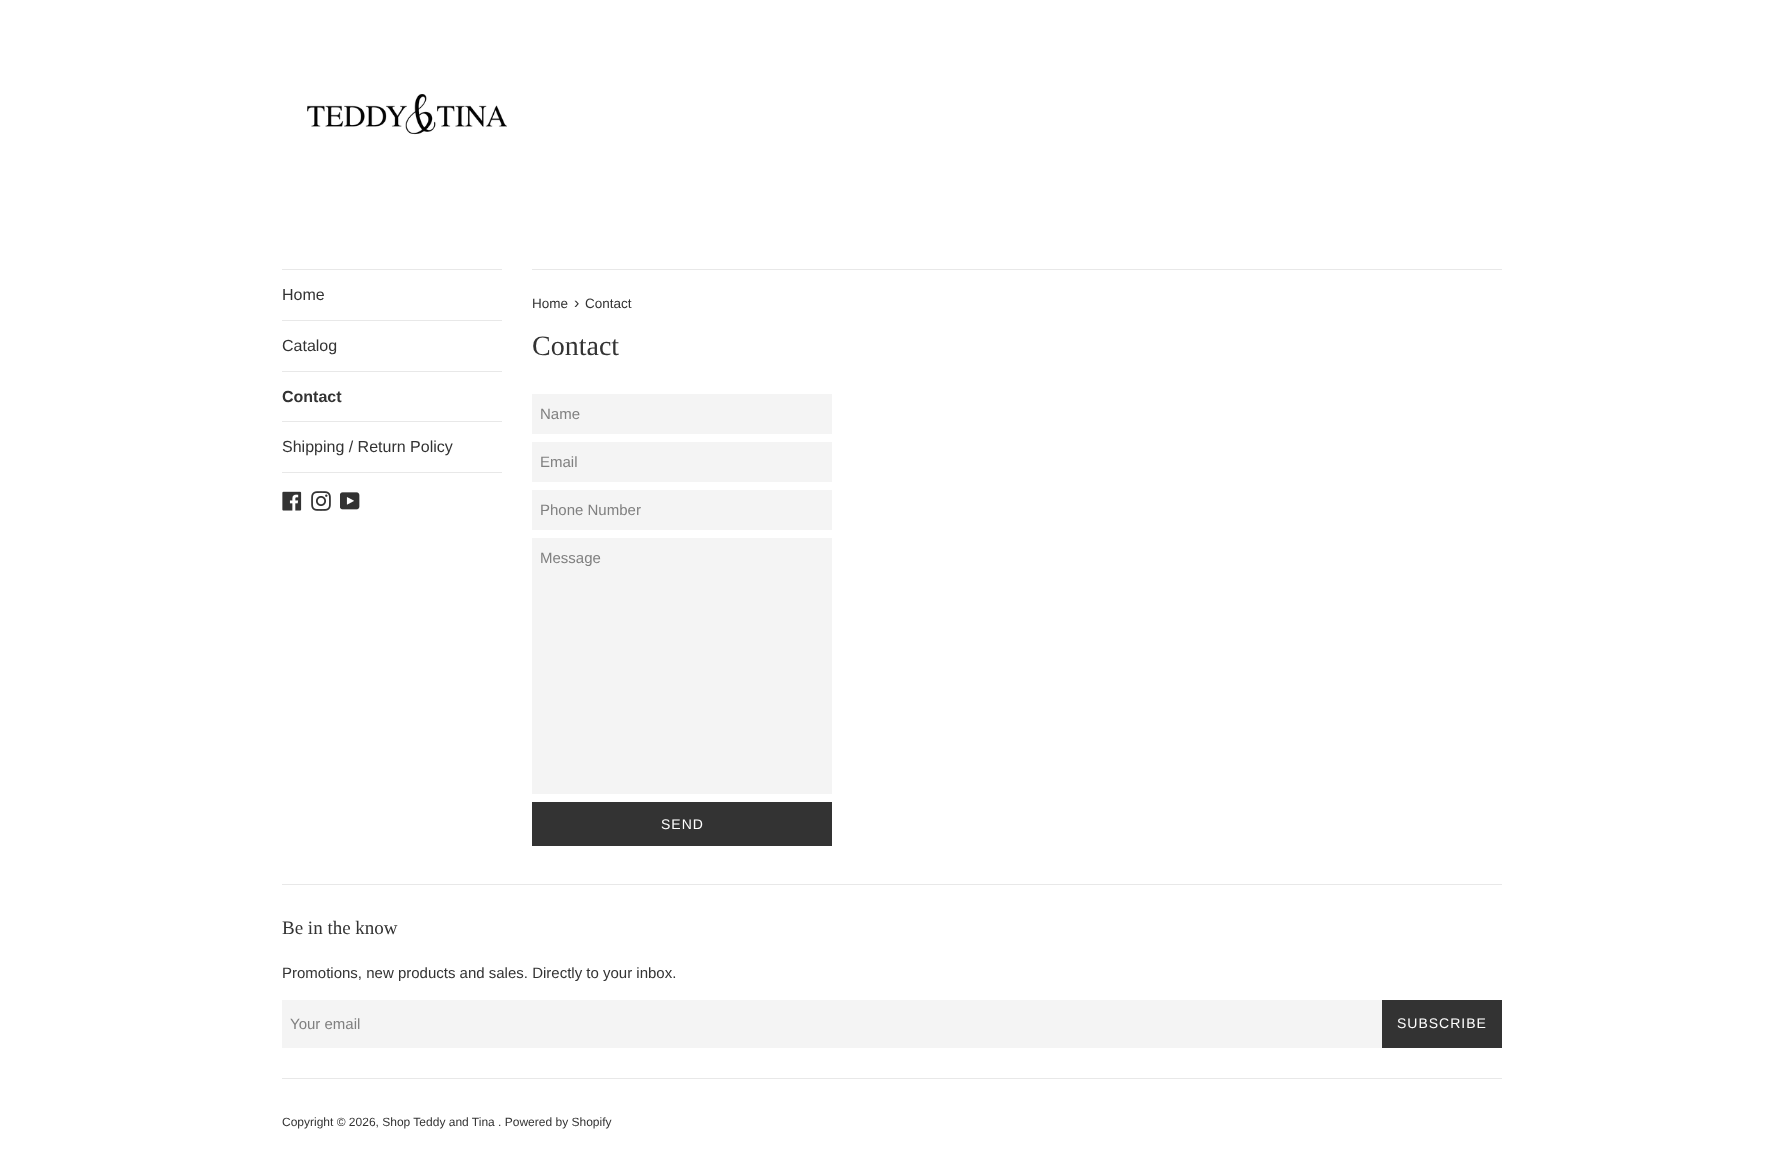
async function draw(canvas) {
	canvas.width = 1784;
	canvas.height = 1163;
	const c = canvas.getContext('2d');
	c.miterLimit = 4;
	c.fontKerning = 'normal';
	async function loadImage(src) {
		const img = new Image();
		img.src = src;
		await img.decode();
		return img;
	}

	c.fillStyle = '#fff';
	c.fillRect(0, 0, 1784, 1163);
	c.drawImage(await loadImage('img1.png'), 307, 94, 200, 41);
	c.fillStyle = '#e8e8e8';
	c.fillRect(282, 269, 220, 1);
	c.fillRect(282, 320, 220, 1);
	c.font = '16px Liberation Sans';
	c.fillStyle = '#333';
	c.fillText('Home', 282, 300);
	c.fillStyle = '#e8e8e8';
	c.fillRect(282, 371, 220, 1);
	c.fillStyle = '#333';
	c.fillText('Catalog', 282, 351);
	c.fillStyle = '#e8e8e8';
	c.fillRect(282, 421, 220, 1);
	c.font = 'bold 16px Liberation Sans';
	c.fillStyle = '#333';
	c.fillText('Contact', 282, 402);
	c.fillStyle = '#e8e8e8';
	c.fillRect(282, 472, 220, 1);
	c.font = '16px Liberation Sans';
	c.fillStyle = '#333';
	c.fillText('Shipping / Return Policy', 282, 452);
	c.drawImage(await loadImage('img2.png'), 282, 491, 20, 20);
	c.drawImage(await loadImage('img3.png'), 311, 491, 20, 20);
	c.drawImage(await loadImage('img4.png'), 340, 492, 20, 18);
	c.fillStyle = '#e8e8e8';
	c.fillRect(532, 269, 970, 1);
	c.font = '13.5px Liberation Sans';
	c.fillStyle = '#333';
	c.fillText('Home', 532, 308);
	c.font = '16px Liberation Sans';
	c.fillText('›', 574, 308);
	c.font = '13.5px Liberation Sans';
	c.fillText('Contact', 585, 308);
	c.font = '28px Liberation Serif';
	c.fillText('Contact', 532, 355);
	c.fillStyle = '#f4f4f4';
	c.fillRect(532, 394, 300, 40);
	c.font = '15px Liberation Sans';
	c.fillStyle = '#808080';
	c.fillText('Name', 540, 419);
	c.fillStyle = '#f4f4f4';
	c.fillRect(532, 442, 300, 40);
	c.fillStyle = '#808080';
	c.fillText('Email', 540, 467);
	c.fillStyle = '#f4f4f4';
	c.fillRect(532, 490, 300, 40);
	c.fillStyle = '#808080';
	c.fillText('Phone Number', 540, 515);
	c.fillStyle = '#f4f4f4';
	c.fillRect(532, 538, 300, 256);
	c.fillStyle = '#808080';
	c.fillText('Message', 540, 563);
	c.fillStyle = '#333';
	c.fillRect(532, 802, 300, 44);
	c.letterSpacing = '1px';
	c.font = '14px Liberation Sans';
	c.fillStyle = '#fff';
	c.fillText('SEND', 661, 829);
	c.fillStyle = '#e8e8e8';
	c.fillRect(282, 884, 1220, 1);
	c.letterSpacing = '0px';
	c.font = '19px Liberation Serif';
	c.fillStyle = '#333';
	c.fillText('Be in the know', 282, 934);
	c.font = '15px Liberation Sans';
	c.fillText('Promotions, new products and sales. Directly to your inbox.', 282, 978);
	c.fillStyle = '#f4f4f4';
	c.fillRect(282, 1000, 1100, 48);
	c.fillStyle = '#808080';
	c.fillText('Your email', 290, 1029);
	c.fillStyle = '#333';
	c.fillRect(1382, 1000, 120, 48);
	c.letterSpacing = '1px';
	c.font = '14px Liberation Sans';
	c.fillStyle = '#fff';
	c.fillText('SUBSCRIBE', 1397, 1028);
	c.fillStyle = '#e8e8e8';
	c.fillRect(282, 1078, 1220, 1);
	c.letterSpacing = '0px';
	c.font = '12px Liberation Sans';
	c.fillStyle = '#333';
	c.fillText('Copyright © 2026, Shop Teddy and Tina . Powered by Shopify', 282, 1126);
}

draw(document.querySelector('canvas'));
